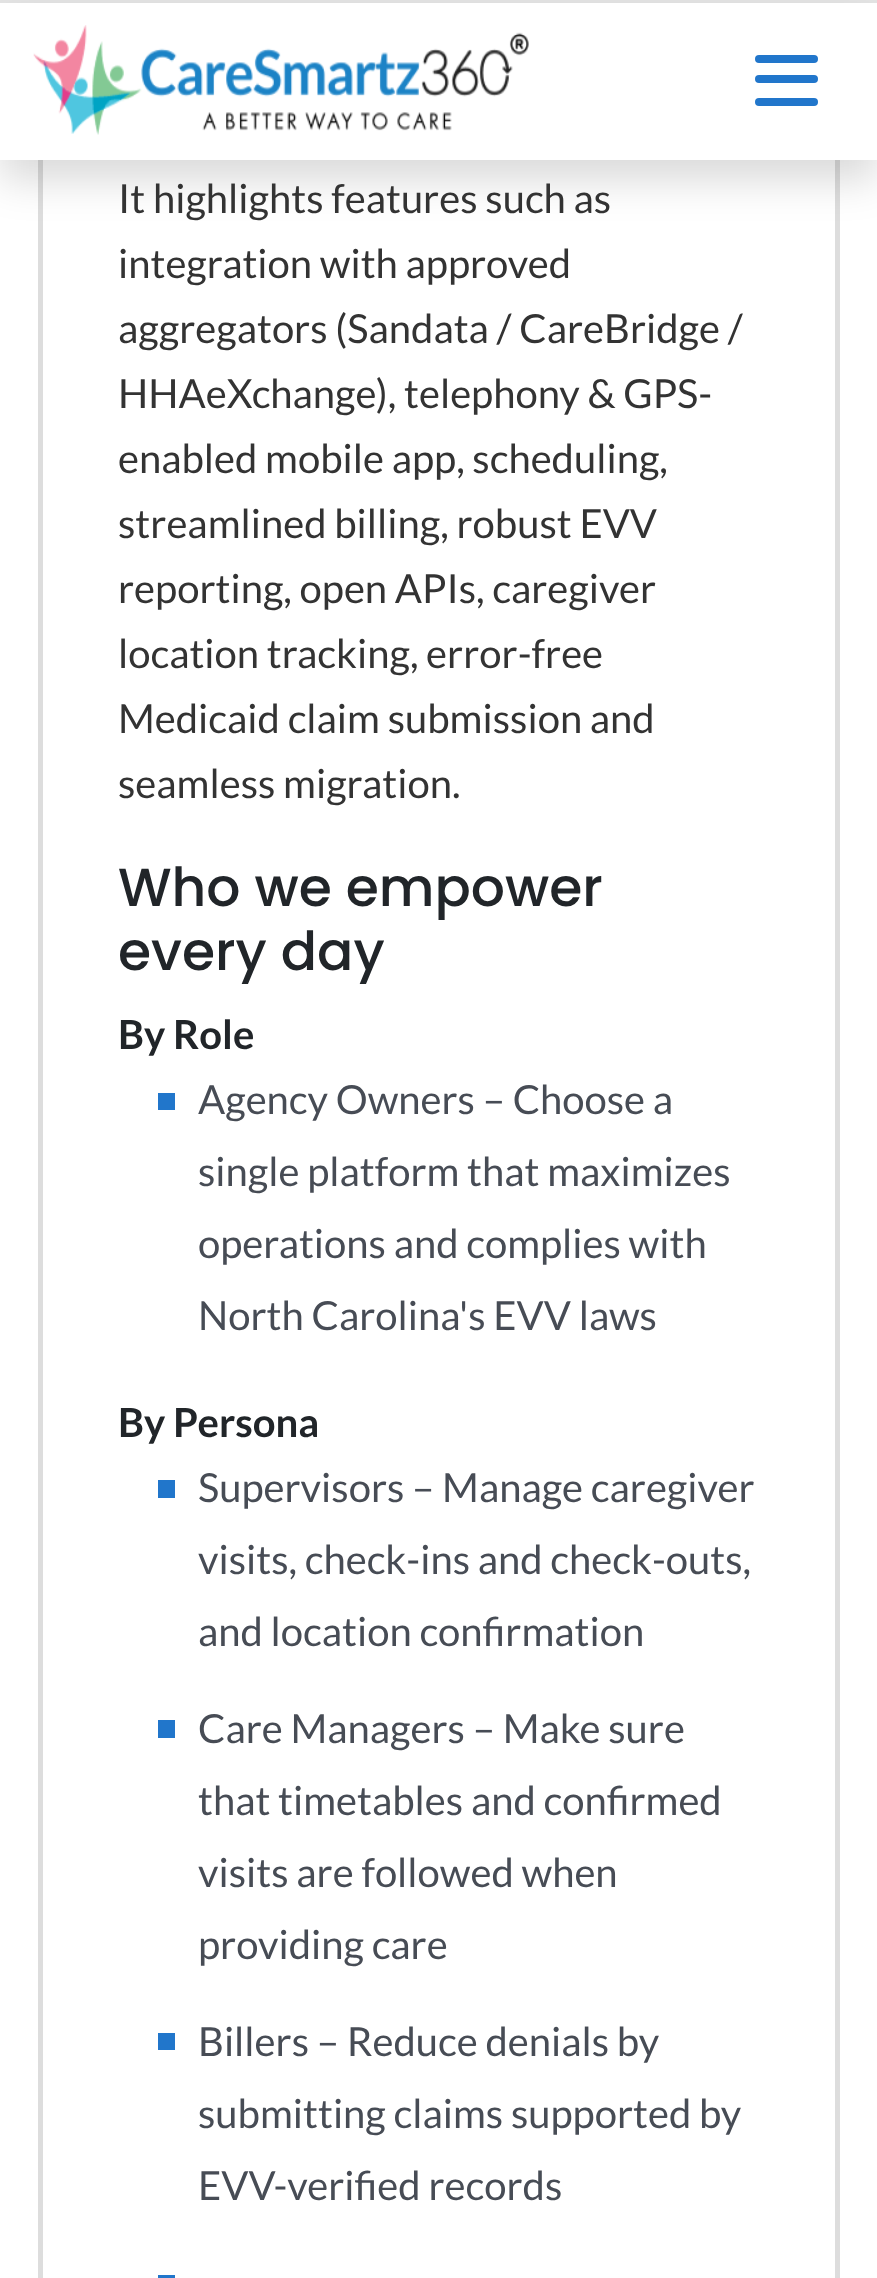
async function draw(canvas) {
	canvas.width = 877;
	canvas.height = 2278;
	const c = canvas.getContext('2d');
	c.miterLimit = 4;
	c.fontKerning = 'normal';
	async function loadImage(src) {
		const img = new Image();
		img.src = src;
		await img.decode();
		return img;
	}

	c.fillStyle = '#fff';
	c.fillRect(0, 0, 877, 2278);
	c.strokeStyle = '#ddd';
	c.lineWidth = 5;
	c.strokeRect(40.5, -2.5, 797, 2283);
	c.fillStyle = '#e5e5e5';
	c.fillRect(0, 0, 877, 3);
	c.fillStyle = '#00000026';
	c.filter = 'blur(20px)';
	c.beginPath();
	c.rect(0, 23, 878, 157);
	c.fill();
	c.filter = 'none';
	c.fillStyle = '#fff';
	c.fillRect(0, 3, 877, 157);
	c.drawImage(await loadImage('img1.png'), 33, 25, 496, 110);
	c.fillStyle = '#2176cb';
	c.beginPath();
	c.roundRect(755, 55, 63, 8, 4);
	c.fill();
	c.beginPath();
	c.roundRect(755, 75, 63, 8, 4);
	c.fill();
	c.beginPath();
	c.roundRect(755, 98, 63, 8, 4);
	c.fill();
	c.font = '40px Lato';
	c.fillStyle = '#333';
	for (const [text, x, y] of [
		['It highlights features such as', 118, 213],
		['integration with approved', 118, 278],
		['aggregators (Sandata / CareBridge /', 118, 343],
		['HHAeXchange), telephony & GPS-', 118, 408],
		['enabled mobile app, scheduling,', 118, 473],
		['streamlined billing, robust EVV', 118, 538],
		['reporting, open APIs, caregiver', 118, 603],
		['location tracking, error-free', 118, 668],
		['Medicaid claim submission and', 118, 733],
		['seamless migration.', 118, 798],
	]) {
		c.fillText(text, x, y);
	}
	c.font = '500 53.6px Poppins';
	c.fillStyle = '#212529';
	c.fillText('Who we empower', 118, 906);
	c.fillText('every day', 118, 970);
	c.font = 'bold 40px Lato';
	c.fillText('By Role', 118, 1049);
	c.fillStyle = '#2176cb';
	c.fillRect(158, 1093, 17, 17);
	c.font = '40px Lato';
	c.fillStyle = '#474c55';
	for (const [text, x, y] of [
		['Agency Owners – Choose a', 198, 1114],
		['single platform that maximizes', 198, 1186],
		['operations and complies with', 198, 1258],
		['North Carolina\'s EVV laws', 198, 1330],
	]) {
		c.fillText(text, x, y);
	}
	c.font = 'bold 40px Lato';
	c.fillStyle = '#212529';
	c.fillText('By Persona', 118, 1437);
	c.fillStyle = '#2176cb';
	c.fillRect(158, 1480, 17, 18);
	c.font = '40px Lato';
	c.fillStyle = '#474c55';
	for (const [text, x, y] of [
		['Supervisors – Manage caregiver', 198, 1502],
		['visits, check-ins and check-outs,', 198, 1574],
		['and location confirmation', 198, 1646],
	]) {
		c.fillText(text, x, y);
	}
	c.fillStyle = '#2176cb';
	c.fillRect(158, 1720, 17, 18);
	c.fillStyle = '#474c55';
	for (const [text, x, y] of [
		['Care Managers – Make sure', 198, 1743],
		['that timetables and confirmed', 198, 1815],
		['visits are followed when', 198, 1887],
		['providing care', 198, 1959],
	]) {
		c.fillText(text, x, y);
	}
	c.fillStyle = '#2176cb';
	c.fillRect(158, 2033, 17, 17);
	c.fillStyle = '#474c55';
	for (const [text, x, y] of [
		['Billers – Reduce denials by', 198, 2056],
		['submitting claims supported by', 198, 2128],
		['EVV-verified records', 198, 2200],
	]) {
		c.fillText(text, x, y);
	}
	c.fillStyle = '#2176cb';
	c.fillRect(158, 2275, 17, 3);
}

draw(document.querySelector('canvas'));
